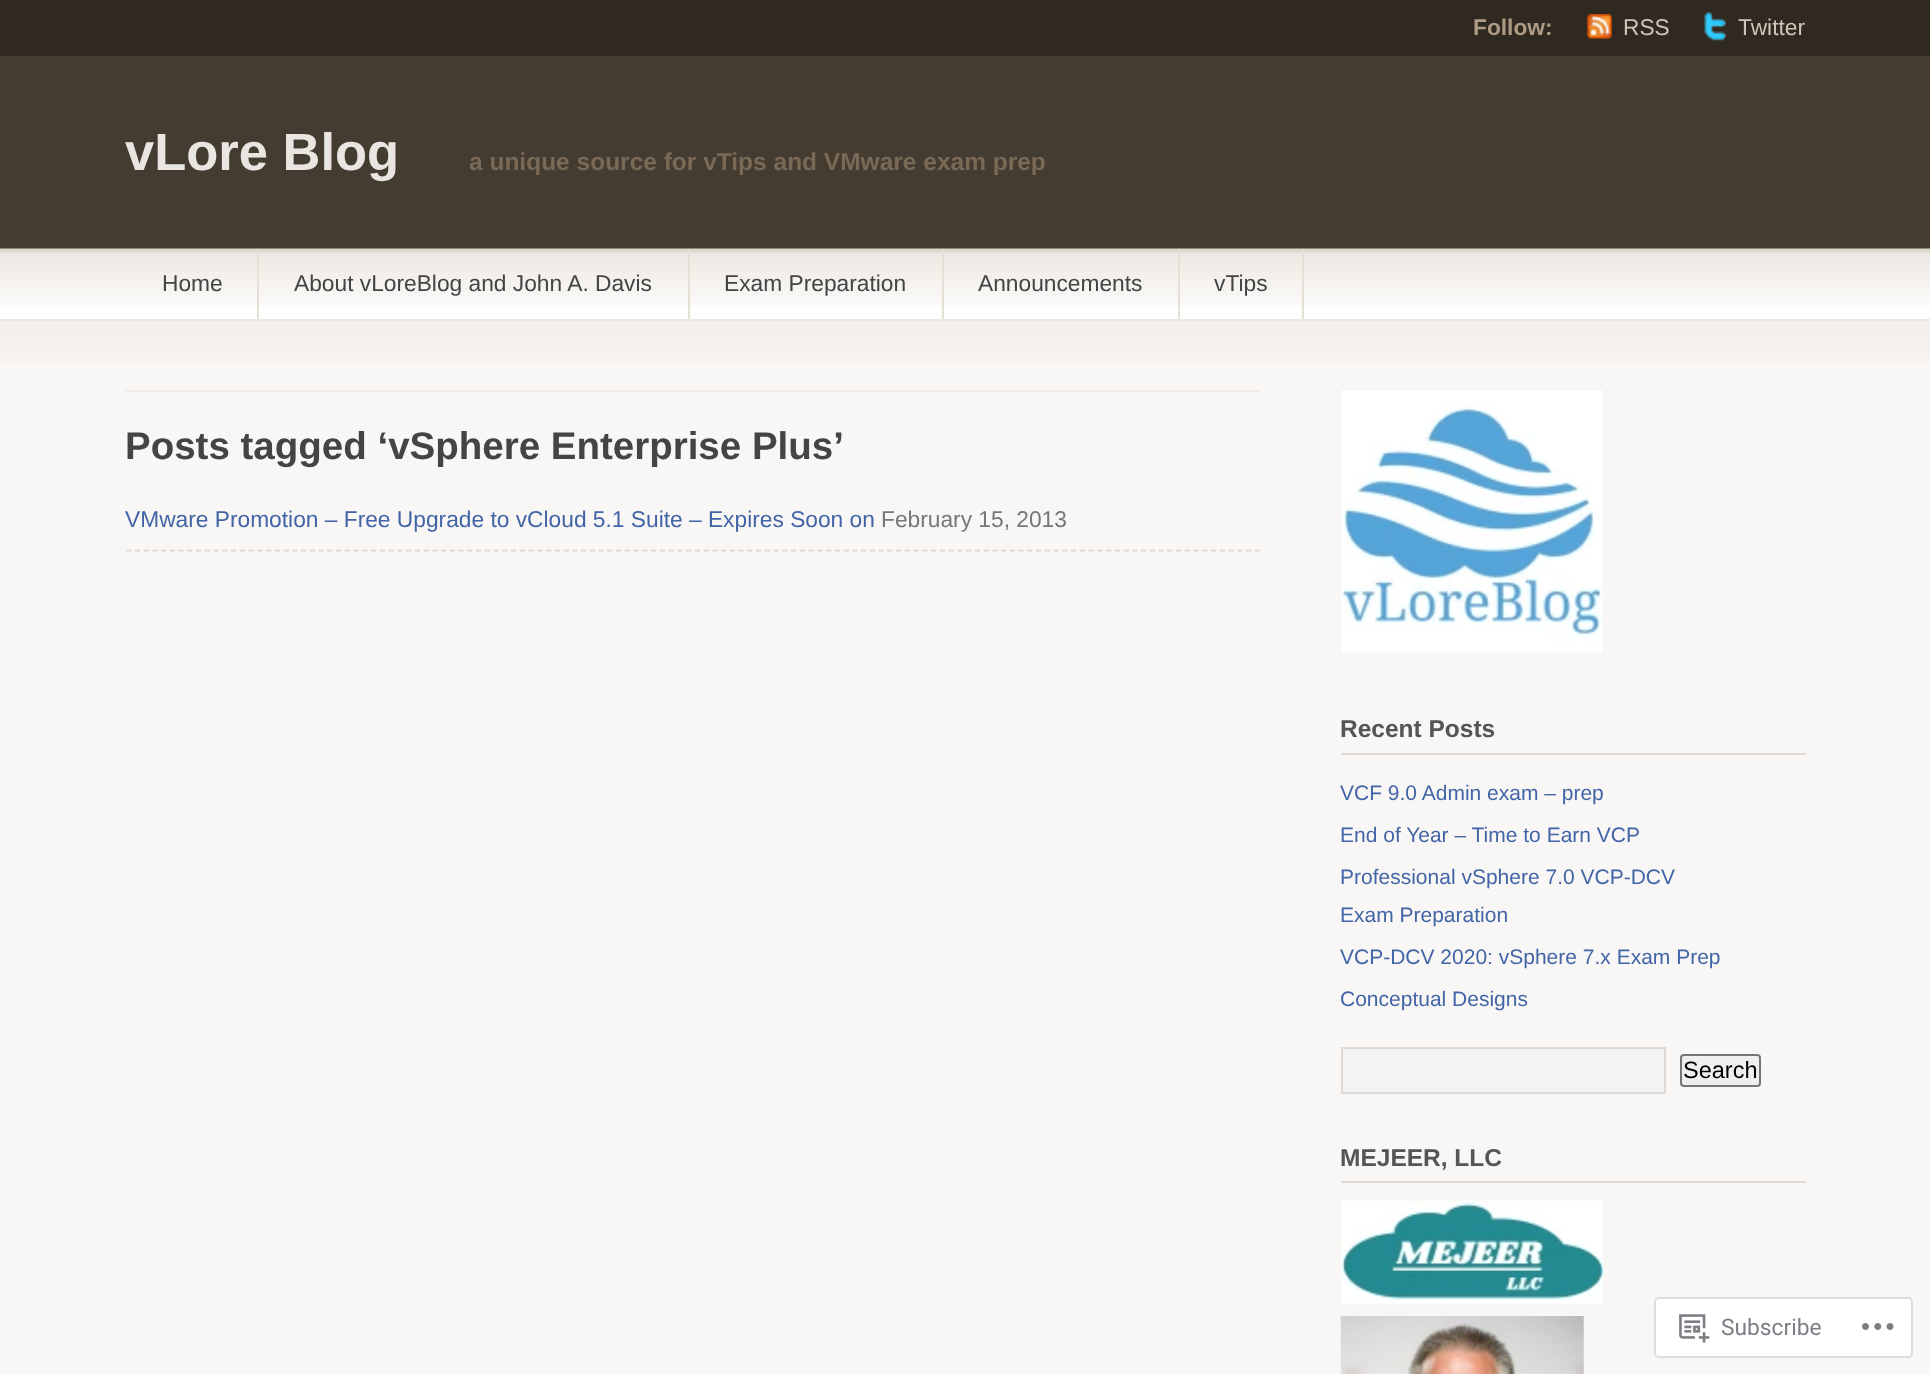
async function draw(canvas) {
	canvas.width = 1930;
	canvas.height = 1374;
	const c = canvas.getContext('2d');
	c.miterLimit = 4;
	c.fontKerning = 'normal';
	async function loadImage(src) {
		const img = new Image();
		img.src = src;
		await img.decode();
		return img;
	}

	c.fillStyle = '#f9f7f5';
	c.fillRect(0, 0, 1930, 1374);
	c.fillStyle = '#443b31';
	c.fillRect(0, 56, 1930, 193);
	c.fillStyle = '#2f2922';
	c.fillRect(0, 0, 1930, 56);
	c.font = 'bold 22.75px Liberation Sans';
	c.fillStyle = '#ad9b83';
	c.fillText('Follow:', 1473, 35);
	c.drawImage(await loadImage('img1.png'), 1587, 14, 25, 25);
	c.font = '22.75px Liberation Sans';
	c.fillStyle = '#cfc4b6';
	c.fillText('RSS', 1623, 35);
	c.drawImage(await loadImage('img2.png'), 1704, 12, 22, 29);
	c.fillText('Twitter', 1738, 35);
	c.font = 'bold 52.5px Liberation Sans';
	c.fillStyle = '#e9e5e0';
	c.fillText('vLore Blog', 125, 170);
	c.font = 'bold 24.5px Liberation Sans';
	c.fillStyle = '#796957';
	c.fillText('a unique source for vTips and VMware exam prep', 469, 170);
	c.fillStyle = '#fffefe';
	c.fillRect(0, 306, 1930, 13);
	c.drawImage(await loadImage('img3.png'), 0, 248, 1930, 58);
	c.fillStyle = '#ede7e0';
	c.fillRect(0, 319, 1930, 2);
	c.fillStyle = '#e3e0d5';
	c.fillRect(257, 249, 2, 70);
	c.font = '22.75px Liberation Sans';
	c.fillStyle = '#444';
	c.fillText('Home', 162, 291);
	c.fillStyle = '#e3e0d5';
	c.fillRect(688, 249, 2, 70);
	c.fillStyle = '#444';
	c.fillText('About vLoreBlog and John A. Davis', 294, 291);
	c.fillStyle = '#e3e0d5';
	c.fillRect(942, 249, 2, 70);
	c.fillStyle = '#444';
	c.fillText('Exam Preparation', 724, 291);
	c.fillStyle = '#e3e0d5';
	c.fillRect(1178, 249, 2, 70);
	c.fillStyle = '#444';
	c.fillText('Announcements', 978, 291);
	c.fillStyle = '#e3e0d5';
	c.fillRect(1302, 249, 2, 70);
	c.fillStyle = '#444';
	c.fillText('vTips', 1214, 291);
	c.drawImage(await loadImage('img4.png'), 0, 321, 1930, 41);
	c.fillStyle = '#efeae4';
	c.fillRect(126, 390, 1134, 2);
	c.font = 'bold 38.5px Liberation Sans';
	c.fillStyle = '#444';
	c.fillText('Posts tagged ‘vSphere Enterprise Plus’', 125, 459);
	c.beginPath();
	c.moveTo(126, 550.5);
	c.lineTo(1260, 550.5);
	c.strokeStyle = '#dfdad5';
	c.lineWidth = 1.8;
	c.setLineDash([5.25, 3.5]);
	c.stroke();
	c.font = '22.75px Liberation Sans';
	c.fillStyle = '#4265a7';
	c.fillText('VMware Promotion – Free Upgrade to vCloud 5.1 Suite – Expires Soon on', 125, 527);
	c.fillStyle = '#777';
	c.fillText('February 15, 2013', 881, 527);
	c.drawImage(await loadImage('img5.png'), 1341, 390, 262, 263);
	c.fillStyle = '#dfdad5';
	c.fillRect(1341, 753, 465, 2);
	c.font = 'bold 24.5px Liberation Sans';
	c.fillStyle = '#555';
	c.fillText('Recent Posts', 1340, 737);
	c.font = '21px Liberation Sans';
	c.fillStyle = '#4265a7';
	for (const [text, x, y] of [
		['VCF 9.0 Admin exam – prep', 1340, 800],
		['End of Year – Time to Earn VCP', 1340, 842],
		['Professional vSphere 7.0 VCP-DCV', 1340, 884],
		['Exam Preparation', 1340, 922],
		['VCP-DCV 2020: vSphere 7.x Exam Prep', 1340, 964],
		['Conceptual Designs', 1340, 1006],
	]) {
		c.fillText(text, x, y);
	}
	c.fillStyle = '#f3f3f3';
	c.beginPath();
	c.rect(1342, 1048, 323, 45);
	c.fill();
	c.strokeStyle = '#ded8d5';
	c.lineWidth = 2;
	c.setLineDash([]);
	c.stroke();
	c.fillStyle = '#efefef';
	c.beginPath();
	c.roundRect(1681, 1055, 79, 31, 3);
	c.fill();
	c.strokeStyle = '#767676';
	c.stroke();
	c.font = '23.5px Liberation Sans';
	c.fillStyle = '#000';
	c.fillText('Search', 1683, 1078);
	c.fillStyle = '#dfdad5';
	c.fillRect(1341, 1181, 465, 2);
	c.font = 'bold 24.5px Liberation Sans';
	c.fillStyle = '#555';
	c.fillText('MEJEER, LLC', 1340, 1166);
	c.drawImage(await loadImage('img6.png'), 1341, 1200, 262, 104);
	c.drawImage(await loadImage('img7.png'), 1340, 1316, 244, 58);
	c.fillStyle = '#fff';
	c.beginPath();
	c.roundRect(1655, 1298, 257, 59, 4);
	c.fill();
	c.strokeStyle = '#ddddde';
	c.stroke();
	c.drawImage(await loadImage('img8.png'), 1679, 1314, 31, 29);
	c.font = '22.75px Roboto';
	c.fillStyle = '#7b7e84';
	c.fillText('Subscribe', 1721, 1335);
	c.drawImage(await loadImage('img9.png'), 1862, 1323, 32, 7);
}

draw(document.querySelector('canvas'));
